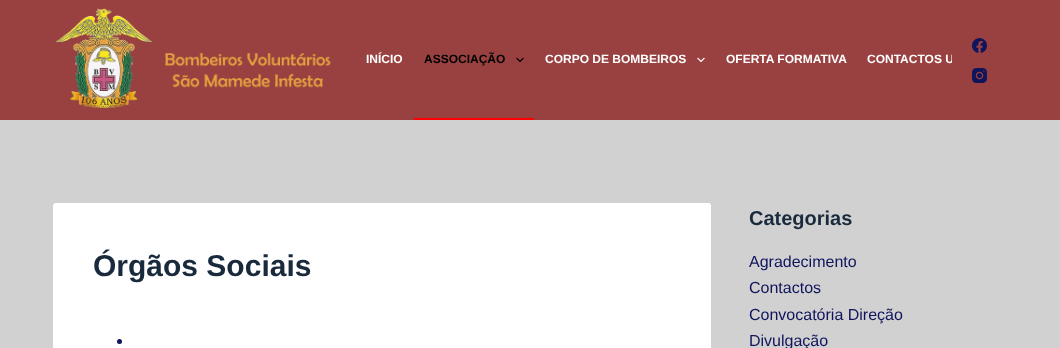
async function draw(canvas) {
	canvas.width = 1060;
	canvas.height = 348;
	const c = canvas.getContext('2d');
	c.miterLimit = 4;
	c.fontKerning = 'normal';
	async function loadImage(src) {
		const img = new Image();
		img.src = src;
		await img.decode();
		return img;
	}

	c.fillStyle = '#d1d1d1';
	c.fillRect(0, 0, 1060, 348);
	c.fillStyle = '#994040';
	c.fillRect(0, 0, 1060, 120);
	c.drawImage(await loadImage('img1.png'), 55, 8, 276, 100);
	c.font = 'bold 12px Liberation Sans';
	c.fillStyle = '#fff';
	c.fillText('INÍCIO', 366, 63);
	c.fillStyle = '#000';
	c.fillText('ASSOCIAÇÃO', 424, 63);
	c.drawImage(await loadImage('img2.png'), 516, 57, 8, 6);
	c.fillStyle = '#fe0000';
	c.fillRect(414, 118, 120, 2);
	c.fillStyle = '#fff';
	c.fillText('CORPO DE BOMBEIROS', 545, 63);
	c.drawImage(await loadImage('img3.png'), 697, 57, 8, 6);
	c.fillText('OFERTA FORMATIVA', 726, 63);
	c.save();
	c.beginPath();
	c.rect(356, 0, 596, 120);
	c.clip();
	c.fillText('CONTACTOS U', 867, 63);
	c.restore();
	c.drawImage(await loadImage('img4.png'), 972, 38, 15, 15);
	c.drawImage(await loadImage('img5.png'), 972, 68, 15, 15);
	c.beginPath();
	c.roundRect(53, 203, 658, 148, 3);
	c.fill();
	c.font = 'bold 30px Liberation Sans';
	c.fillStyle = '#192a3d';
	c.fillText('Órgãos Sociais', 93, 276);
	c.fillStyle = '#0f145b';
	c.beginPath();
	c.arc(119.5, 341.5, 2.5, 0, 2 * Math.PI);
	c.fill();
	c.font = 'bold 20px Liberation Sans';
	c.fillStyle = '#192a3d';
	c.fillText('Categorias', 749, 225);
	c.font = '16px Liberation Sans';
	c.fillStyle = '#0f145b';
	for (const [text, x, y] of [
		['Agradecimento', 749, 267],
		['Contactos', 749, 293],
		['Convocatória Direção', 749, 320],
		['Divulgação', 749, 346],
	]) {
		c.fillText(text, x, y);
	}
}

draw(document.querySelector('canvas'));
